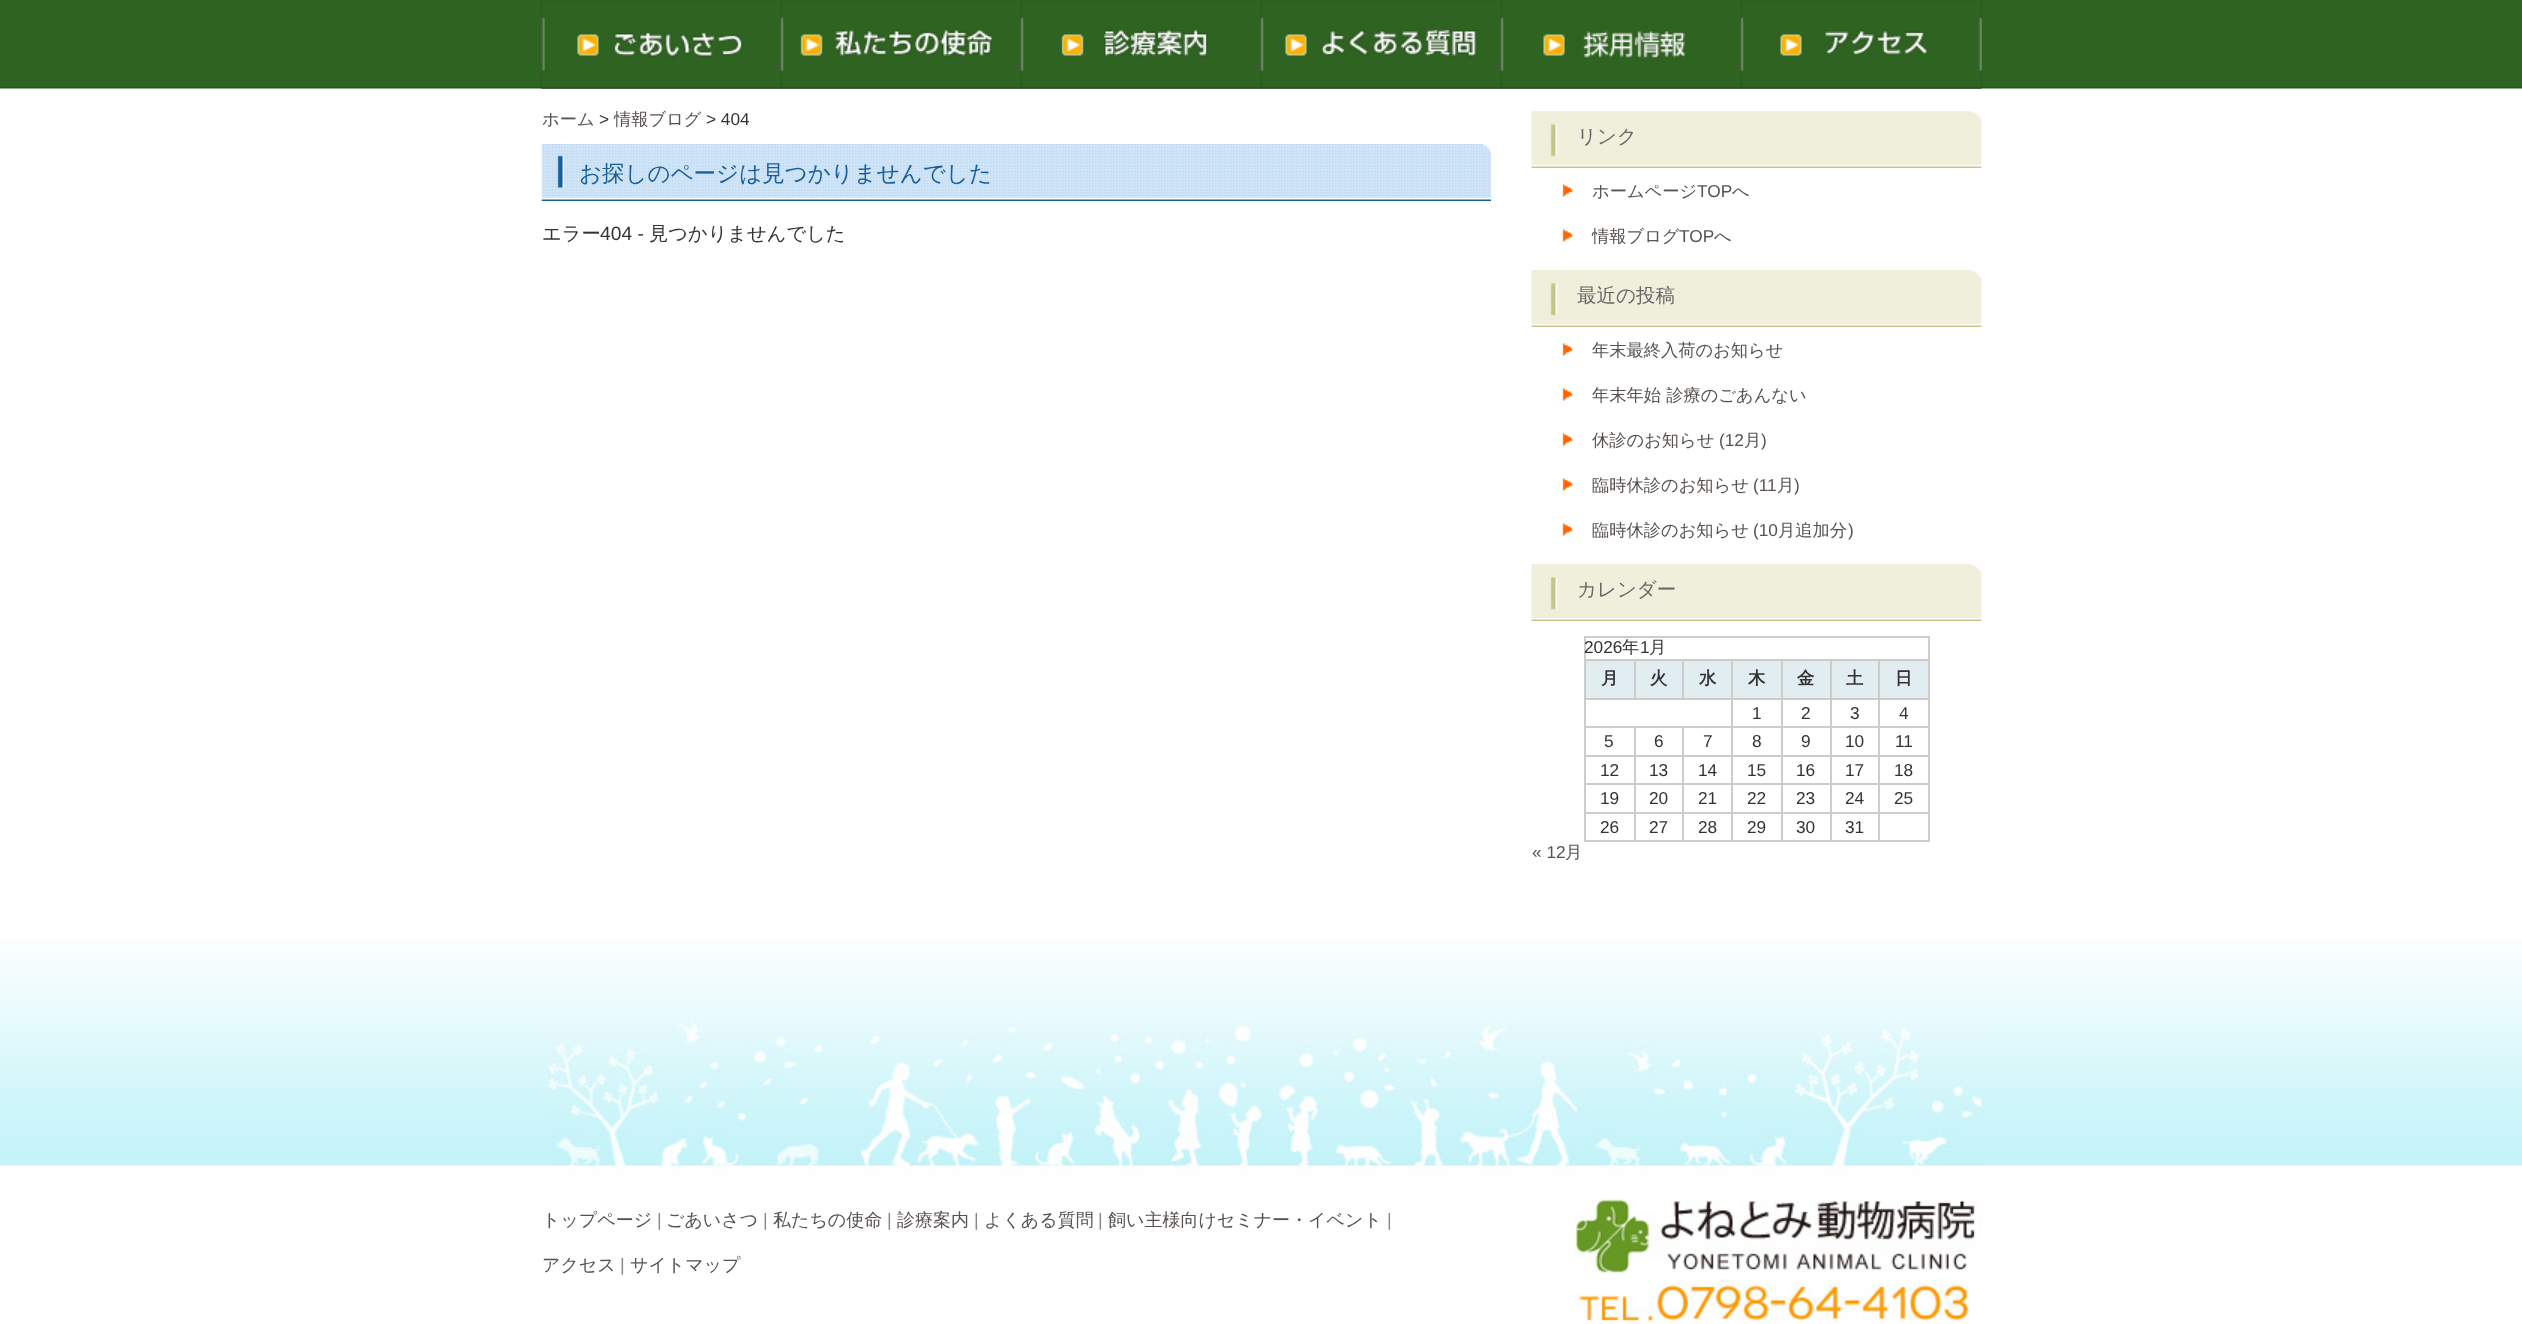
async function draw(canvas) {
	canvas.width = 2522;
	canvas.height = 1324;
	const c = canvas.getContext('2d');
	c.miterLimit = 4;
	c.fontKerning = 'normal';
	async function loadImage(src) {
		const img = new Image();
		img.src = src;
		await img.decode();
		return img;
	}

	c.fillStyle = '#fff';
	c.fillRect(0, 0, 2522, 1324);
	c.drawImage(await loadImage('img1.png'), 0, 0, 2522, 89);
	c.drawImage(await loadImage('img2.png'), 541, 0, 1441, 89);
	c.drawImage(await loadImage('img3.png'), 541, 0, 241, 89);
	c.drawImage(await loadImage('img4.png'), 781, 0, 241, 89);
	c.drawImage(await loadImage('img5.png'), 1021, 0, 241, 89);
	c.drawImage(await loadImage('img6.png'), 1261, 0, 241, 89);
	c.drawImage(await loadImage('img7.png'), 1501, 0, 241, 89);
	c.drawImage(await loadImage('img8.png'), 1741, 0, 241, 89);
	c.font = '500 17.25px WenQuanYi Zen Hei';
	c.fillStyle = '#57524f';
	c.fillText('ホーム', 542, 125);
	c.font = '17.25px Liberation Sans';
	c.fillStyle = '#333';
	c.fillText('>', 599, 125);
	c.font = '500 17.25px WenQuanYi Zen Hei';
	c.fillStyle = '#57524f';
	c.fillText('情報ブログ', 614, 125);
	c.font = '17.25px Liberation Sans';
	c.fillStyle = '#333';
	c.fillText('> 404', 706, 125);
	c.drawImage(await loadImage('img9.png'), 541, 144, 950, 57);
	c.font = '500 22.5px WenQuanYi Zen Hei';
	c.fillStyle = '#185f9e';
	c.fillText('お探しのページは見つかりませんでした', 579, 181);
	c.font = '500 19.25px WenQuanYi Zen Hei';
	c.fillStyle = '#333';
	c.fillText('エラー', 542, 240);
	c.font = '19.25px Liberation Sans';
	c.fillText('404 -', 600, 240);
	c.font = '500 19.25px WenQuanYi Zen Hei';
	c.fillText('見つかりませんでした', 649, 240);
	c.drawImage(await loadImage('img10.png'), 1531, 111, 451, 57);
	c.font = '500 19.5px WenQuanYi Zen Hei';
	c.fillStyle = '#666';
	c.fillText('リンク', 1577, 143);
	c.drawImage(await loadImage('img11.png'), 1562, 184, 11, 13);
	c.font = '500 17.25px WenQuanYi Zen Hei';
	c.fillStyle = '#57524f';
	c.fillText('ホームページ', 1592, 197);
	c.font = '17.25px Liberation Sans';
	c.fillText('TOP', 1697, 197);
	c.font = '500 17.25px WenQuanYi Zen Hei';
	c.fillText('へ', 1732, 197);
	c.drawImage(await loadImage('img11.png'), 1562, 229, 11, 13);
	c.fillText('情報ブログ', 1592, 242);
	c.font = '17.25px Liberation Sans';
	c.fillText('TOP', 1679, 242);
	c.font = '500 17.25px WenQuanYi Zen Hei';
	c.fillText('へ', 1714, 242);
	c.drawImage(await loadImage('img10.png'), 1531, 270, 451, 57);
	c.font = '500 19.5px WenQuanYi Zen Hei';
	c.fillStyle = '#666';
	c.fillText('最近の投稿', 1577, 302);
	c.drawImage(await loadImage('img11.png'), 1562, 343, 11, 13);
	c.font = '500 17.25px WenQuanYi Zen Hei';
	c.fillStyle = '#57524f';
	c.fillText('年末最終入荷のお知らせ', 1592, 356);
	c.drawImage(await loadImage('img11.png'), 1562, 388, 11, 13);
	c.fillText('年末年始 診療のごあんない', 1592, 401);
	c.drawImage(await loadImage('img11.png'), 1562, 433, 11, 13);
	c.fillText('休診のお知らせ', 1592, 446);
	c.font = '17.25px Liberation Sans';
	c.fillText('(12', 1719, 446);
	c.font = '500 17.25px WenQuanYi Zen Hei';
	c.fillText('月', 1744, 446);
	c.font = '17.25px Liberation Sans';
	c.fillText(')', 1761, 446);
	c.drawImage(await loadImage('img11.png'), 1562, 478, 11, 13);
	c.font = '500 17.25px WenQuanYi Zen Hei';
	c.fillText('臨時休診のお知らせ', 1592, 491);
	c.font = '17.25px Liberation Sans';
	c.fillText('(11', 1753, 491);
	c.font = '500 17.25px WenQuanYi Zen Hei';
	c.fillText('月', 1777, 491);
	c.font = '17.25px Liberation Sans';
	c.fillText(')', 1794, 491);
	c.drawImage(await loadImage('img11.png'), 1562, 523, 11, 13);
	c.font = '500 17.25px WenQuanYi Zen Hei';
	c.fillText('臨時休診のお知らせ', 1592, 536);
	c.font = '17.25px Liberation Sans';
	c.fillText('(10', 1753, 536);
	c.font = '500 17.25px WenQuanYi Zen Hei';
	c.fillText('月追加分', 1778, 536);
	c.font = '17.25px Liberation Sans';
	c.fillText(')', 1848, 536);
	c.drawImage(await loadImage('img10.png'), 1531, 564, 451, 57);
	c.font = '500 19.5px WenQuanYi Zen Hei';
	c.fillStyle = '#666';
	c.fillText('カレンダー', 1577, 596);
	for (const [x, y, w, h, color] of [
		[1584, 636, 345, 2, '#ccc'],
		[1928, 636, 2, 206, '#ccc'],
		[1584, 840, 345, 2, '#ccc'],
		[1584, 636, 2, 206, '#ccc'],
	]) {
		c.fillStyle = color;
		c.fillRect(x, y, w, h);
	}
	c.font = '17.25px Liberation Sans';
	c.fillStyle = '#333';
	c.fillText('2026', 1584, 653);
	c.font = '500 17.25px WenQuanYi Zen Hei';
	c.fillText('年', 1622, 653);
	c.font = '17.25px Liberation Sans';
	c.fillText('1', 1640, 653);
	c.font = '500 17.25px WenQuanYi Zen Hei';
	c.fillText('月', 1649, 653);
	for (const [x, y, w, h, color] of [
		[1586, 661, 48, 37, '#e2edf1'],
		[1878, 659, 51, 2, '#ccc'],
		[1878, 698, 51, 2, '#ccc'],
		[1878, 726, 51, 2, '#ccc'],
		[1878, 755, 51, 2, '#ccc'],
		[1878, 783, 51, 2, '#ccc'],
		[1878, 812, 51, 2, '#ccc'],
		[1878, 812, 2, 30, '#ccc'],
		[1830, 812, 50, 2, '#ccc'],
		[1878, 783, 2, 30, '#ccc'],
		[1830, 783, 50, 2, '#ccc'],
		[1878, 755, 2, 30, '#ccc'],
		[1830, 755, 50, 2, '#ccc'],
		[1878, 726, 2, 30, '#ccc'],
		[1830, 726, 50, 2, '#ccc'],
		[1878, 698, 2, 30, '#ccc'],
		[1830, 698, 50, 2, '#ccc'],
		[1878, 659, 2, 40, '#ccc'],
		[1830, 659, 50, 2, '#ccc'],
		[1830, 812, 2, 30, '#ccc'],
		[1781, 812, 51, 2, '#ccc'],
		[1830, 783, 2, 30, '#ccc'],
		[1781, 783, 51, 2, '#ccc'],
		[1830, 755, 2, 30, '#ccc'],
		[1781, 755, 51, 2, '#ccc'],
		[1830, 726, 2, 30, '#ccc'],
		[1781, 726, 51, 2, '#ccc'],
		[1830, 698, 2, 30, '#ccc'],
		[1781, 698, 51, 2, '#ccc'],
		[1830, 659, 2, 40, '#ccc'],
		[1781, 659, 51, 2, '#ccc'],
		[1781, 812, 2, 30, '#ccc'],
		[1731, 812, 51, 2, '#ccc'],
		[1781, 783, 2, 30, '#ccc'],
		[1731, 783, 51, 2, '#ccc'],
		[1781, 755, 2, 30, '#ccc'],
		[1731, 755, 51, 2, '#ccc'],
		[1781, 726, 2, 30, '#ccc'],
		[1731, 726, 51, 2, '#ccc'],
		[1781, 698, 2, 30, '#ccc'],
		[1731, 698, 51, 2, '#ccc'],
		[1781, 659, 2, 40, '#ccc'],
		[1731, 659, 51, 2, '#ccc'],
		[1731, 812, 2, 30, '#ccc'],
		[1682, 812, 51, 2, '#ccc'],
		[1731, 783, 2, 30, '#ccc'],
		[1682, 783, 51, 2, '#ccc'],
		[1731, 755, 2, 30, '#ccc'],
		[1682, 755, 51, 2, '#ccc'],
		[1731, 726, 2, 30, '#ccc'],
		[1682, 726, 51, 2, '#ccc'],
		[1731, 698, 2, 30, '#ccc'],
		[1584, 698, 149, 2, '#ccc'],
		[1731, 659, 2, 40, '#ccc'],
		[1682, 659, 51, 2, '#ccc'],
		[1682, 659, 2, 40, '#ccc'],
		[1634, 659, 49, 2, '#ccc'],
		[1634, 659, 2, 40, '#ccc'],
		[1584, 659, 51, 2, '#ccc'],
	]) {
		c.fillStyle = color;
		c.fillRect(x, y, w, h);
	}
	c.font = 'bold 17.25px WenQuanYi Zen Hei';
	c.fillStyle = '#333';
	c.fillText('月', 1601, 684);
	c.fillStyle = '#e2edf1';
	c.fillRect(1636, 661, 46, 37);
	c.fillStyle = '#333';
	c.fillText('火', 1650, 684);
	c.fillStyle = '#e2edf1';
	c.fillRect(1684, 661, 47, 37);
	c.fillStyle = '#333';
	c.fillText('水', 1699, 684);
	c.fillStyle = '#e2edf1';
	c.fillRect(1733, 661, 48, 37);
	c.fillStyle = '#333';
	c.fillText('木', 1748, 684);
	c.fillStyle = '#e2edf1';
	c.fillRect(1783, 661, 47, 37);
	c.fillStyle = '#333';
	c.fillText('金', 1797, 684);
	c.fillStyle = '#e2edf1';
	c.fillRect(1832, 661, 46, 37);
	c.fillStyle = '#333';
	c.fillText('土', 1846, 684);
	c.fillStyle = '#e2edf1';
	c.fillRect(1880, 661, 48, 37);
	c.fillStyle = '#333';
	c.fillText('日', 1895, 684);
	c.font = '17.25px Liberation Sans';
	for (const [text, x, y] of [
		['1', 1752, 719],
		['2', 1801, 719],
		['3', 1850, 719],
		['4', 1899, 719],
	]) {
		c.fillText(text, x, y);
	}
	for (const [x, y, w, h, color] of [
		[1682, 812, 2, 30, '#ccc'],
		[1634, 812, 49, 2, '#ccc'],
		[1682, 783, 2, 30, '#ccc'],
		[1634, 783, 49, 2, '#ccc'],
		[1682, 755, 2, 30, '#ccc'],
		[1634, 755, 49, 2, '#ccc'],
		[1682, 726, 2, 30, '#ccc'],
		[1634, 726, 49, 2, '#ccc'],
		[1634, 812, 2, 30, '#ccc'],
		[1584, 812, 51, 2, '#ccc'],
		[1634, 783, 2, 30, '#ccc'],
		[1584, 783, 51, 2, '#ccc'],
		[1634, 755, 2, 30, '#ccc'],
		[1584, 755, 51, 2, '#ccc'],
		[1634, 726, 2, 30, '#ccc'],
		[1584, 726, 51, 2, '#ccc'],
	]) {
		c.fillStyle = color;
		c.fillRect(x, y, w, h);
	}
	c.fillStyle = '#333';
	for (const [text, x, y] of [
		['5', 1604, 747],
		['6', 1654, 747],
		['7', 1703, 747],
		['8', 1752, 747],
		['9', 1801, 747],
		['10', 1845, 747],
		['11', 1895, 747],
		['12', 1600, 776],
		['13', 1649, 776],
		['14', 1698, 776],
		['15', 1747, 776],
		['16', 1796, 776],
		['17', 1845, 776],
		['18', 1894, 776],
		['19', 1600, 804],
		['20', 1649, 804],
		['21', 1698, 804],
		['22', 1747, 804],
		['23', 1796, 804],
		['24', 1845, 804],
		['25', 1894, 804],
		['26', 1600, 833],
		['27', 1649, 833],
		['28', 1698, 833],
		['29', 1747, 833],
		['30', 1796, 833],
		['31', 1845, 833],
	]) {
		c.fillText(text, x, y);
	}
	c.fillStyle = '#57524f';
	c.fillText('« 12', 1532, 858);
	c.font = '500 17.25px WenQuanYi Zen Hei';
	c.fillText('月', 1565, 858);
	c.drawImage(await loadImage('img12.png'), 0, 939, 2522, 227);
	c.drawImage(await loadImage('img13.png'), 548, 1020, 1434, 303);
	c.font = '500 18px WenQuanYi Zen Hei';
	c.fillText('トップページ', 542, 1226);
	c.font = '18px Liberation Sans';
	c.fillStyle = '#888';
	c.fillText('|', 657, 1226);
	c.font = '500 18px WenQuanYi Zen Hei';
	c.fillStyle = '#57524f';
	c.fillText('ごあいさつ', 666, 1226);
	c.font = '18px Liberation Sans';
	c.fillStyle = '#888';
	c.fillText('|', 763, 1226);
	c.font = '500 18px WenQuanYi Zen Hei';
	c.fillStyle = '#57524f';
	c.fillText('私たちの使命', 773, 1226);
	c.font = '18px Liberation Sans';
	c.fillStyle = '#888';
	c.fillText('|', 887, 1226);
	c.font = '500 18px WenQuanYi Zen Hei';
	c.fillStyle = '#57524f';
	c.fillText('診療案内', 897, 1226);
	c.font = '18px Liberation Sans';
	c.fillStyle = '#888';
	c.fillText('|', 974, 1226);
	c.font = '500 18px WenQuanYi Zen Hei';
	c.fillStyle = '#57524f';
	c.fillText('よくある質問', 984, 1226);
	c.font = '18px Liberation Sans';
	c.fillStyle = '#888';
	c.fillText('|', 1098, 1226);
	c.font = '500 18px WenQuanYi Zen Hei';
	c.fillStyle = '#57524f';
	c.fillText('飼い主様向けセミナー・イベント', 1108, 1226);
	c.font = '18px Liberation Sans';
	c.fillStyle = '#888';
	c.fillText('|', 1387, 1226);
	c.font = '500 18px WenQuanYi Zen Hei';
	c.fillStyle = '#57524f';
	c.fillText('アクセス', 542, 1271);
	c.font = '18px Liberation Sans';
	c.fillStyle = '#888';
	c.fillText('|', 620, 1271);
	c.font = '500 18px WenQuanYi Zen Hei';
	c.fillStyle = '#57524f';
	c.fillText('サイトマップ', 630, 1271);
}

draw(document.querySelector('canvas'));
